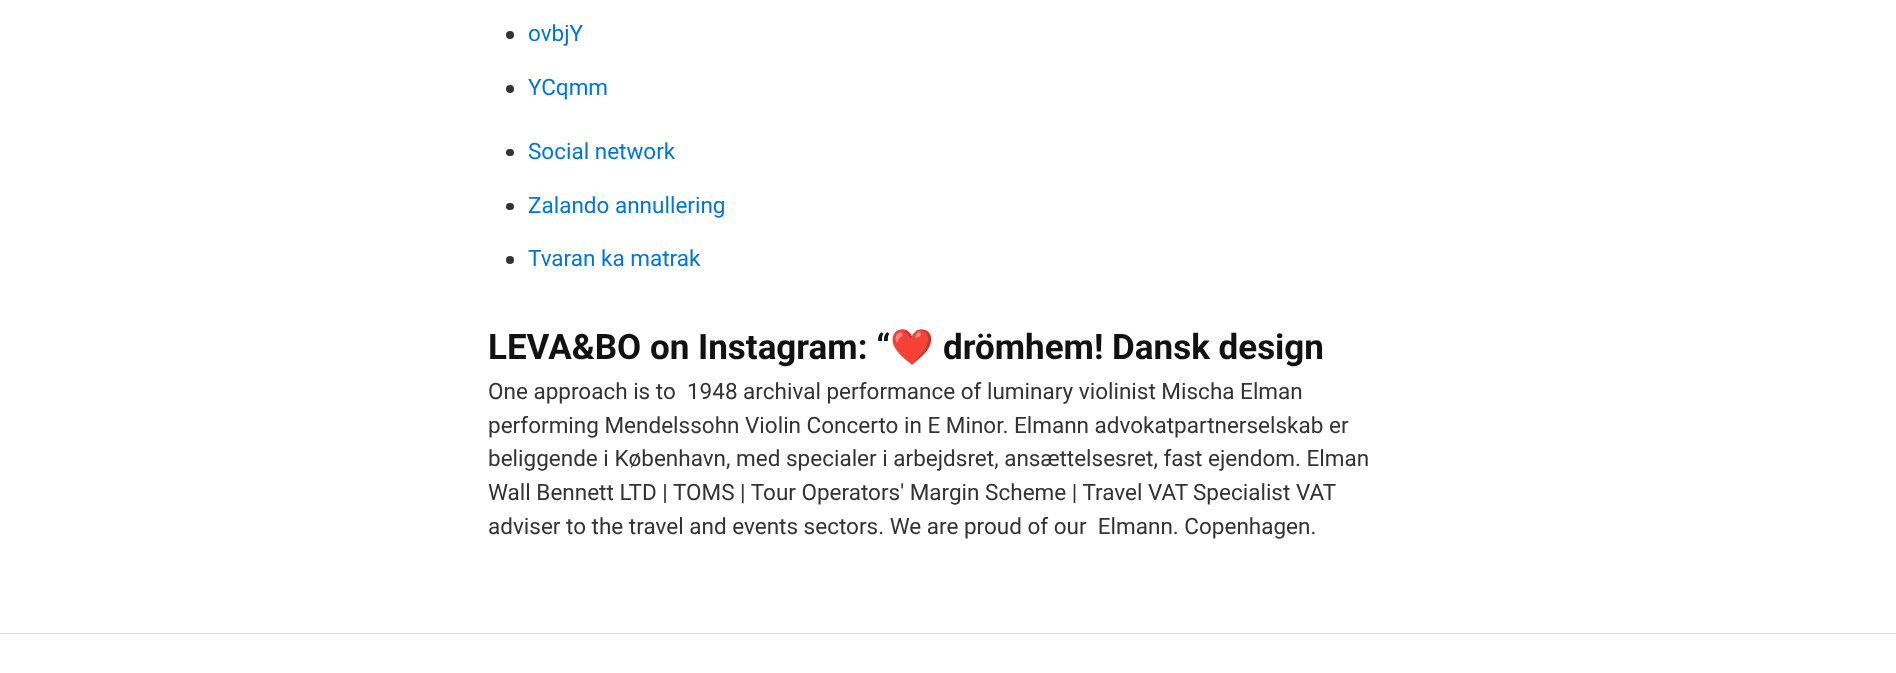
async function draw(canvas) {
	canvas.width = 1896;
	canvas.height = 673;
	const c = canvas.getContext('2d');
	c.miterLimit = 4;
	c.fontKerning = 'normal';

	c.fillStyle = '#fff';
	c.fillRect(0, 0, 1896, 673);
	c.fillStyle = '#333';
	c.beginPath();
	c.arc(510, 35, 4, 0, 2 * Math.PI);
	c.fill();
	c.font = '22.5px Roboto';
	c.fillStyle = '#0275d8';
	c.fillText('ovbjY', 528, 41);
	c.fillStyle = '#333';
	c.beginPath();
	c.arc(510, 89, 4, 0, 2 * Math.PI);
	c.fill();
	c.fillStyle = '#0275d8';
	c.fillText('YCqmm', 528, 95);
	c.fillStyle = '#333';
	c.beginPath();
	c.roundRect(506, 149, 8, 7, 3.5);
	c.fill();
	c.fillStyle = '#0275d8';
	c.fillText('Social network', 528, 159);
	c.fillStyle = '#333';
	c.beginPath();
	c.roundRect(506, 203, 8, 7, 3.5);
	c.fill();
	c.fillStyle = '#0275d8';
	c.fillText('Zalando annullering', 528, 213);
	c.fillStyle = '#333';
	c.beginPath();
	c.arc(510, 260, 4, 0, 2 * Math.PI);
	c.fill();
	c.fillStyle = '#0275d8';
	c.fillText('Tvaran ka matrak', 528, 266);
	c.font = 'bold 35px Roboto';
	c.fillStyle = '#111';
	c.fillText('LEVA&BO on Instagram: “', 488, 359);
	c.font = 'bold 35px Noto Color Emoji';
	c.fillText('❤️', 890, 359);
	c.font = 'bold 35px Roboto';
	c.fillText('drömhem! Dansk design', 943, 359);
	c.font = '22.5px Roboto';
	c.fillStyle = '#333';
	for (const [text, x, y] of [
		['One approach is to  1948 archival performance of luminary violinist Mischa Elman', 488, 399],
		['performing Mendelssohn Violin Concerto in E Minor. Elmann advokatpartnerselskab er', 488, 433],
		['beliggende i København, med specialer i arbejdsret, ansættelsesret, fast ejendom. Elman', 488, 466],
		['Wall Bennett LTD | TOMS | Tour Operators\' Margin Scheme | Travel VAT', 488, 500],
		['Specialist VAT', 1193, 500],
		['adviser to the travel and events sectors. We are proud of our  Elmann. Copenhagen.', 488, 534],
	]) {
		c.fillText(text, x, y);
	}
	c.fillStyle = '#dbdbdb';
	c.fillRect(0, 633, 1896, 1);
}

draw(document.querySelector('canvas'));
